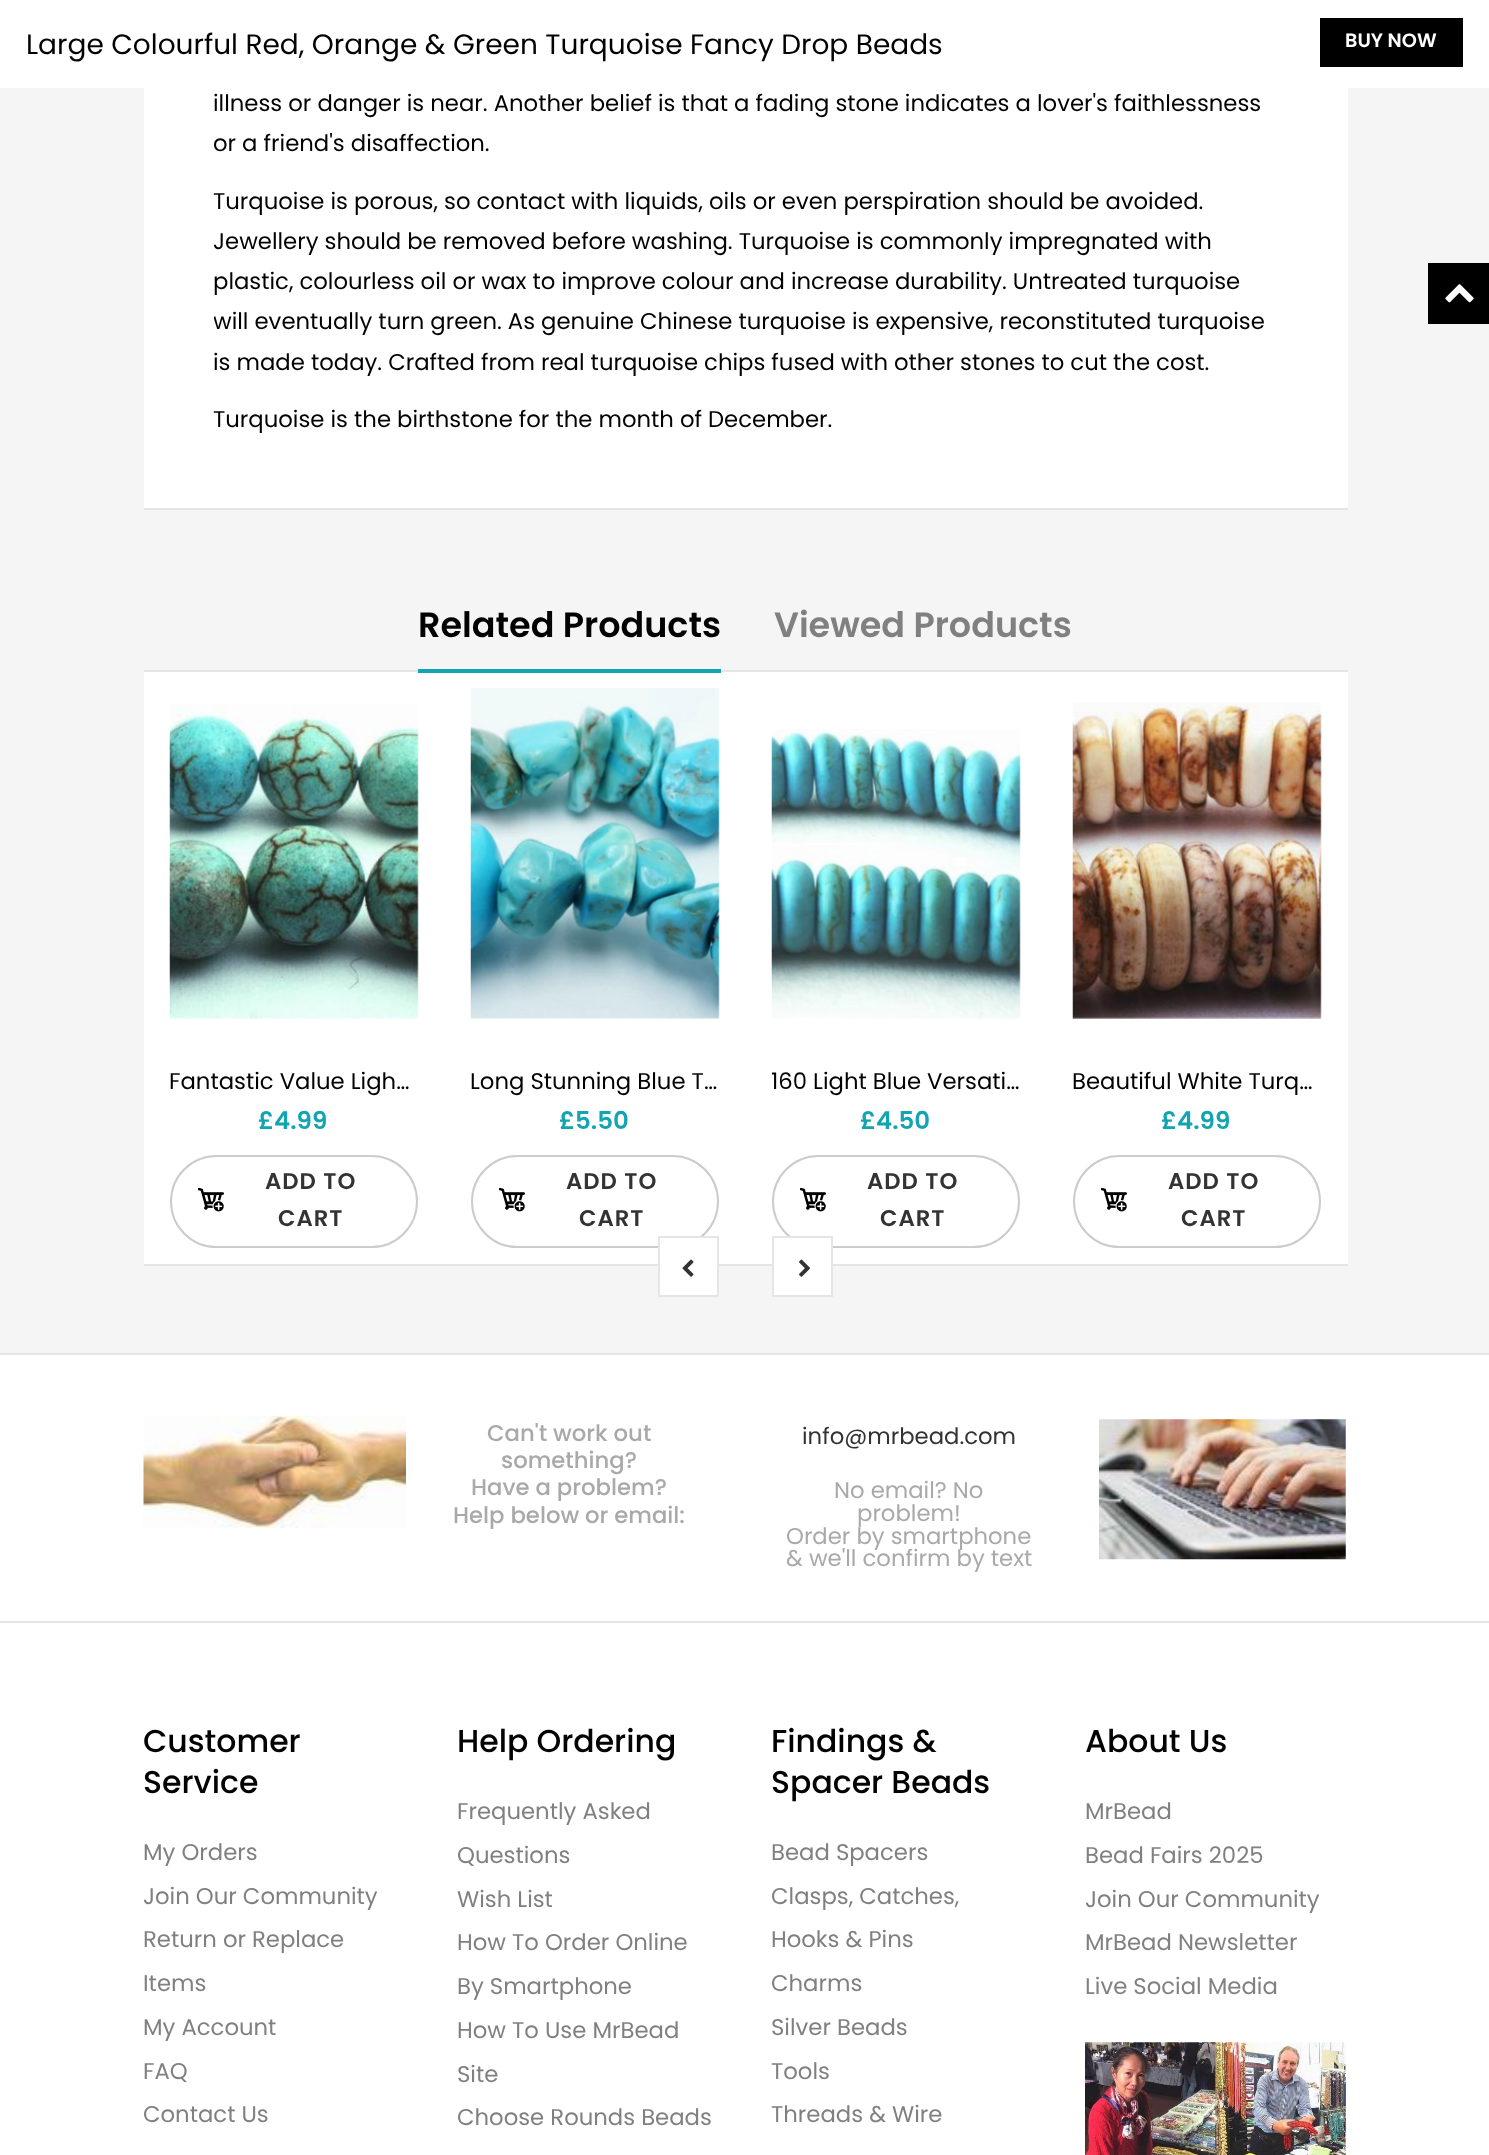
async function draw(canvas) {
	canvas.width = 1489;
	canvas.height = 2155;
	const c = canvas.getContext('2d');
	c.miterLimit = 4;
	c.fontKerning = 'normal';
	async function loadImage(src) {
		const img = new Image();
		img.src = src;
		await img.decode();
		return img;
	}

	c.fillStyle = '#f5f5f5';
	c.fillRect(0, 0, 1489, 2155);
	c.fillStyle = '#fff';
	c.fillRect(0, 0, 1489, 88);
	c.font = '28px Poppins';
	c.fillStyle = '#020202';
	c.fillText('Large Colourful Red, Orange & Green Turquoise Fancy Drop Beads', 26, 54);
	c.fillStyle = '#000';
	c.fillRect(1320, 18, 143, 49);
	c.font = '600 19.25px Poppins';
	c.fillStyle = '#fff';
	c.fillText('BUY NOW', 1345, 47);
	c.fillRect(144, 88, 1204, 420);
	c.font = '22.75px Poppins';
	c.fillStyle = '#020202';
	c.fillText('illness or danger is near. Another belief is that a fading stone indicates a lover\'s faithlessness', 213, 111);
	c.save();
	c.beginPath();
	c.rect(214, 0, 1064, 439);
	c.clip();
	c.fillText('or a friend\'s disaffection.', 213, 151);
	c.restore();
	c.fillText('Turquoise is porous, so contact with liquids, oils or even perspiration should be avoided.', 213, 209);
	c.save();
	c.beginPath();
	c.rect(214, 0, 1064, 439);
	c.clip();
	c.fillText('Jewellery should be removed before washing. Turquoise is commonly impregnated with', 213, 249);
	c.restore();
	c.fillText('plastic, colourless oil or wax to improve colour and increase durability. Untreated turquoise', 213, 289);
	c.save();
	c.beginPath();
	c.rect(214, 0, 1064, 439);
	c.clip();
	c.fillText('will eventually turn green. As genuine Chinese turquoise is expensive, reconstituted turquoise', 213, 329);
	c.restore();
	c.fillText('is made today. Crafted from real turquoise chips fused with other stones to cut the cost.', 213, 370);
	c.fillText('Turquoise is the birthstone for the month of December.', 213, 427);
	c.fillStyle = '#e5e5e5';
	c.fillRect(144, 508, 1204, 2);
	c.font = '600 35px Poppins';
	c.fillStyle = '#020202';
	c.fillText('Related Products', 418, 637);
	for (const [x, y, w, h, color] of [
		[144, 672, 1204, 592, '#fff'],
		[144, 670, 1204, 2, '#e5e5e5'],
		[418, 669, 303, 4, '#13a4b1'],
	]) {
		c.fillStyle = color;
		c.fillRect(x, y, w, h);
	}
	c.fillStyle = '#808080';
	c.fillText('Viewed Products', 774, 637);
	c.drawImage(await loadImage('img1.png'), 169, 704, 250, 315);
	c.font = '22.75px Poppins';
	c.fillStyle = '#020202';
	c.fillText('Fantastic Value Ligh…', 169, 1089);
	c.font = '600 24.5px Poppins';
	c.fillStyle = '#13a4b1';
	c.fillText('£4.99', 258, 1129);
	c.beginPath();
	c.roundRect(171, 1156, 246, 91, 45.5);
	c.strokeStyle = '#ccc';
	c.lineWidth = 2;
	c.stroke();
	c.drawImage(await loadImage('img2.png'), 198, 1187, 26, 25);
	c.letterSpacing = '1px';
	c.font = '600 22.75px Poppins';
	c.fillStyle = '#333';
	c.fillText('ADD TO', 265, 1189);
	c.fillText('CART', 278, 1226);
	c.drawImage(await loadImage('img3.png'), 470, 688, 250, 331);
	c.letterSpacing = '0px';
	c.font = '22.75px Poppins';
	c.fillStyle = '#020202';
	c.fillText('Long Stunning Blue T…', 470, 1089);
	c.font = '600 24.5px Poppins';
	c.fillStyle = '#13a4b1';
	c.fillText('£5.50', 559, 1129);
	c.beginPath();
	c.roundRect(472, 1156, 246, 91, 45.5);
	c.stroke();
	c.drawImage(await loadImage('img2.png'), 499, 1187, 26, 25);
	c.letterSpacing = '1px';
	c.font = '600 22.75px Poppins';
	c.fillStyle = '#333';
	c.fillText('ADD TO', 566, 1189);
	c.fillText('CART', 579, 1226);
	c.drawImage(await loadImage('img4.png'), 771, 729, 250, 290);
	c.save();
	c.beginPath();
	c.rect(772, 1047, 248, 54);
	c.clip();
	c.letterSpacing = '0px';
	c.font = '22.75px Poppins';
	c.fillStyle = '#020202';
	c.fillText('160 Light Blue Versati…', 771, 1089);
	c.restore();
	c.letterSpacing = '0px';
	c.font = '600 24.5px Poppins';
	c.fillStyle = '#13a4b1';
	c.fillText('£4.50', 860, 1129);
	c.beginPath();
	c.roundRect(773, 1156, 246, 91, 45.5);
	c.stroke();
	c.drawImage(await loadImage('img2.png'), 800, 1187, 26, 25);
	c.letterSpacing = '1px';
	c.font = '600 22.75px Poppins';
	c.fillStyle = '#333';
	c.fillText('ADD TO', 867, 1189);
	c.fillText('CART', 880, 1226);
	c.drawImage(await loadImage('img5.png'), 1072, 702, 250, 317);
	c.letterSpacing = '0px';
	c.font = '22.75px Poppins';
	c.fillStyle = '#020202';
	c.fillText('Beautiful White Turq…', 1072, 1089);
	c.font = '600 24.5px Poppins';
	c.fillStyle = '#13a4b1';
	c.fillText('£4.99', 1161, 1129);
	c.beginPath();
	c.roundRect(1074, 1156, 246, 91, 45.5);
	c.stroke();
	c.drawImage(await loadImage('img2.png'), 1101, 1187, 26, 25);
	c.letterSpacing = '1px';
	c.font = '600 22.75px Poppins';
	c.fillStyle = '#333';
	c.fillText('ADD TO', 1168, 1189);
	c.fillText('CART', 1181, 1226);
	c.fillStyle = '#e5e5e5';
	c.fillRect(144, 1264, 1204, 2);
	c.fillStyle = '#fff';
	c.beginPath();
	c.rect(659, 1237, 59, 59);
	c.fill();
	c.strokeStyle = '#e5e5e5';
	c.stroke();
	c.drawImage(await loadImage('img6.png'), 682, 1259, 12, 18);
	c.beginPath();
	c.rect(773, 1237, 59, 59);
	c.fill();
	c.stroke();
	c.drawImage(await loadImage('img7.png'), 799, 1259, 11, 18);
	c.fillRect(0, 1355, 1489, 266);
	c.fillStyle = '#e5e5e5';
	c.fillRect(0, 1353, 1489, 2);
	c.drawImage(await loadImage('img8.png'), 143, 1415, 263, 113);
	c.letterSpacing = '0px';
	c.font = '500 22.75px Poppins';
	c.fillStyle = '#a9a9a9';
	for (const [text, x, y] of [
		['Can\'t work out', 487, 1441],
		['something?', 501, 1468],
		['Have a problem?', 471, 1495],
		['Help below or email:', 453, 1523],
	]) {
		c.fillText(text, x, y);
	}
	c.font = '22.75px Poppins';
	c.fillStyle = '#333';
	c.fillText('info@mrbead.com', 802, 1444);
	c.fillStyle = '#a9a9a9';
	for (const [text, x, y] of [
		['No email? No', 834, 1498],
		['problem!', 857, 1521],
		['Order by smartphone', 786, 1544],
		['& we\'ll confirm by text', 786, 1566],
	]) {
		c.fillText(text, x, y);
	}
	c.drawImage(await loadImage('img9.png'), 1099, 1419, 247, 141);
	c.fillStyle = '#fff';
	c.fillRect(0, 1623, 1489, 532);
	c.fillStyle = '#e5e5e5';
	c.fillRect(0, 1621, 1489, 2);
	c.font = '500 31.5px Poppins';
	c.fillStyle = '#020202';
	c.fillText('Customer', 143, 1752);
	c.fillText('Service', 143, 1793);
	c.font = '22.75px Poppins';
	c.fillStyle = '#808080';
	for (const [text, x, y] of [
		['My Orders', 143, 1860],
		['Join Our Community', 143, 1904],
		['Return or Replace', 143, 1947],
		['Items', 143, 1991],
		['My Account', 143, 2035],
		['FAQ', 143, 2079],
		['Contact Us', 143, 2122],
	]) {
		c.fillText(text, x, y);
	}
	c.font = '500 31.5px Poppins';
	c.fillStyle = '#020202';
	c.fillText('Help Ordering', 457, 1752);
	c.font = '22.75px Poppins';
	c.fillStyle = '#808080';
	for (const [text, x, y] of [
		['Frequently Asked', 457, 1819],
		['Questions', 457, 1863],
		['Wish List', 457, 1907],
		['How To Order Online', 457, 1950],
		['By Smartphone', 457, 1994],
		['How To Use MrBead', 457, 2038],
		['Site', 457, 2082],
		['Choose Rounds Beads', 457, 2125],
	]) {
		c.fillText(text, x, y);
	}
	c.font = '500 31.5px Poppins';
	c.fillStyle = '#020202';
	c.fillText('Findings &', 771, 1752);
	c.fillText('Spacer Beads', 771, 1793);
	c.font = '22.75px Poppins';
	c.fillStyle = '#808080';
	for (const [text, x, y] of [
		['Bead Spacers', 771, 1860],
		['Clasps, Catches,', 771, 1904],
		['Hooks & Pins', 771, 1947],
		['Charms', 771, 1991],
		['Silver Beads', 771, 2035],
		['Tools', 771, 2079],
		['Threads & Wire', 771, 2122],
	]) {
		c.fillText(text, x, y);
	}
	c.font = '500 31.5px Poppins';
	c.fillStyle = '#020202';
	c.fillText('About Us', 1085, 1752);
	c.font = '22.75px Poppins';
	c.fillStyle = '#808080';
	for (const [text, x, y] of [
		['MrBead', 1085, 1819],
		['Bead Fairs 2025', 1085, 1863],
		['Join Our Community', 1085, 1907],
		['MrBead Newsletter', 1085, 1950],
		['Live Social Media', 1085, 1994],
	]) {
		c.fillText(text, x, y);
	}
	c.drawImage(await loadImage('img10.png'), 1085, 2042, 261, 113);
	c.fillStyle = '#000';
	c.fillRect(1428, 263, 61, 61);
	c.drawImage(await loadImage('img11.png'), 1445, 284, 29, 19);
}

draw(document.querySelector('canvas'));
